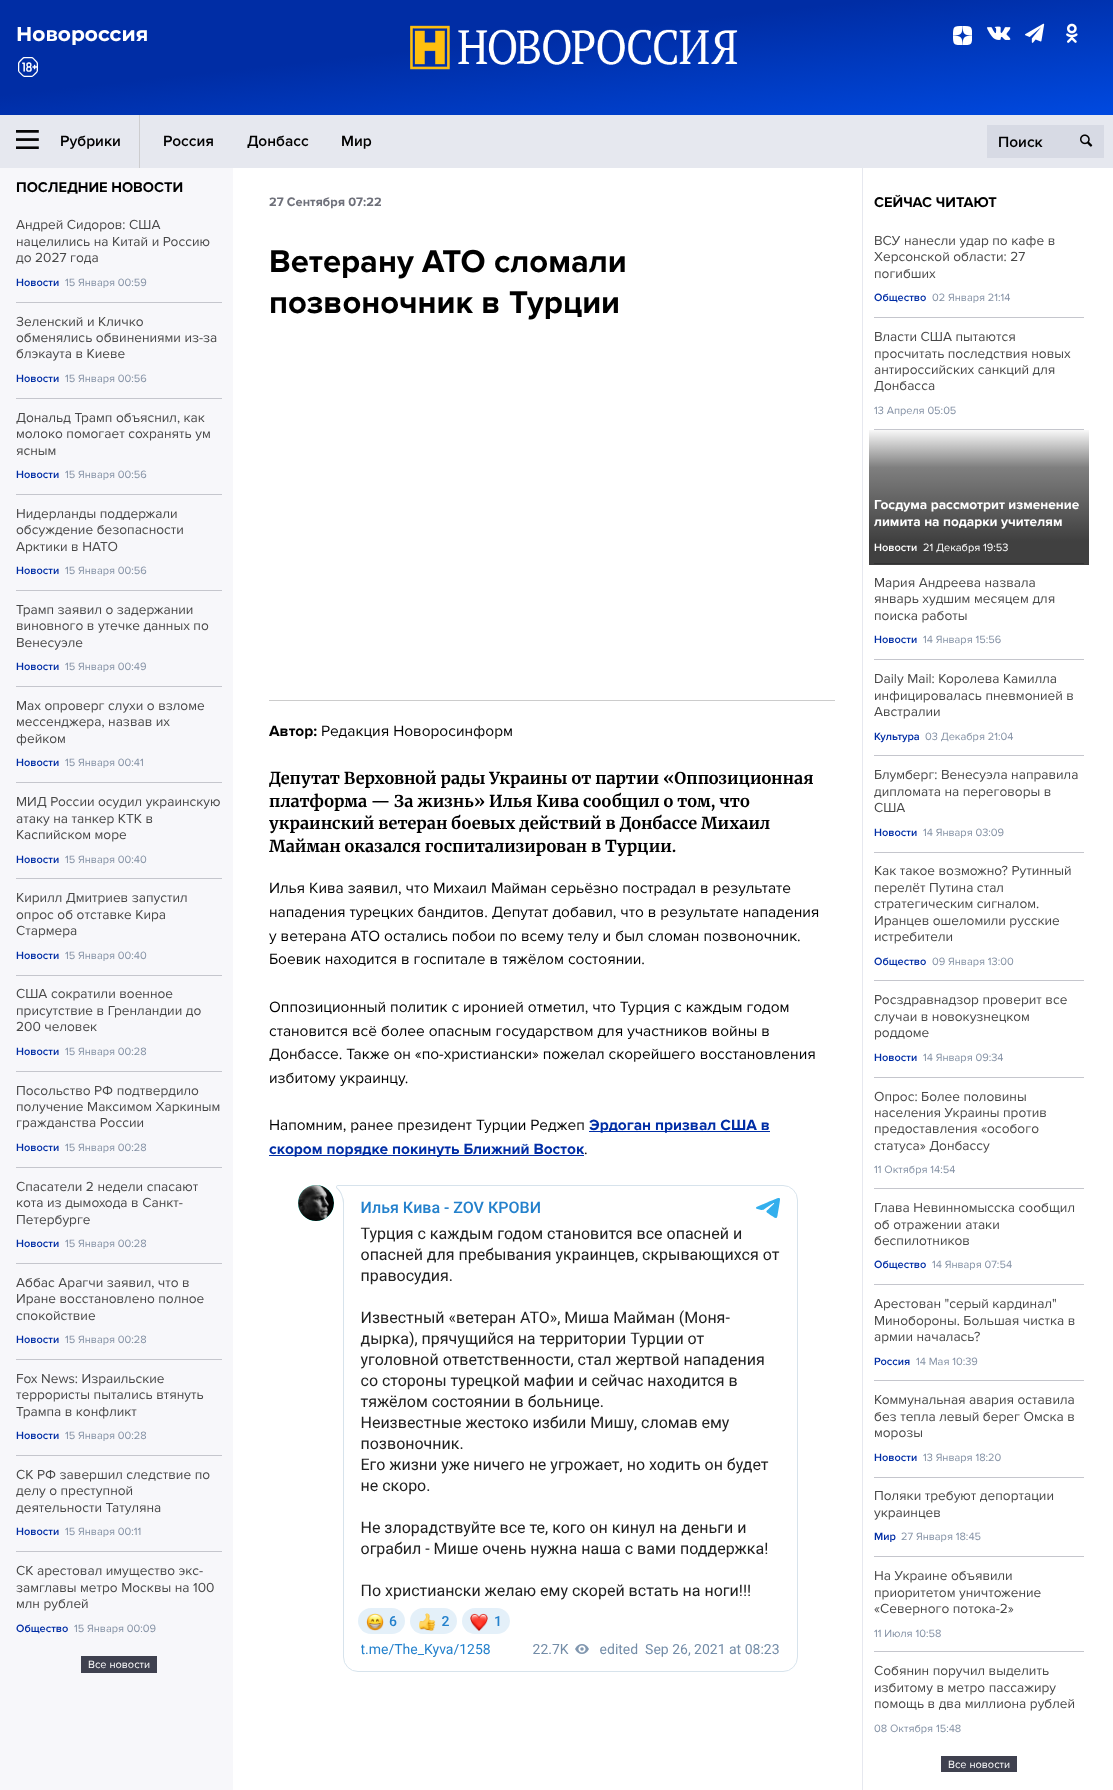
async function draw(canvas) {
	canvas.width = 1113;
	canvas.height = 1790;
	const c = canvas.getContext('2d');
	c.miterLimit = 4;
	c.fontKerning = 'normal';
	async function loadImage(src) {
		const img = new Image();
		img.src = src;
		await img.decode();
		return img;
	}
	let gradient;

	c.fillStyle = '#fff';
	c.fillRect(0, 0, 1113, 1790);
	c.fillStyle = '#404040';
	c.fillRect(869, 541, 220, 24);
	gradient = c.createLinearGradient(544, -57, 569, 172);
	gradient.addColorStop(0.4, '#002da5');
	gradient.addColorStop(1, '#0049df');
	c.fillStyle = gradient;
	c.fillRect(0, 0, 1113, 115);
	c.font = 'bold 20px Montserrat';
	c.fillStyle = '#fff';
	c.fillText('Новороссия', 16, 41);
	c.drawImage(await loadImage('img1.png'), 410, 25, 328, 45);
	c.drawImage(await loadImage('img2.png'), 953, 26, 19, 19);
	c.drawImage(await loadImage('img3.png'), 987, 26, 24, 14);
	c.drawImage(await loadImage('img4.png'), 1025, 23, 20, 20);
	c.drawImage(await loadImage('img5.png'), 1066, 23, 12, 20);
	c.drawImage(await loadImage('img6.png'), 18, 57, 20, 20);
	c.fillStyle = '#e6e8ef';
	c.fillRect(0, 115, 1113, 53);
	c.fillStyle = '#cdcdcf';
	c.fillRect(139, 115, 1, 53);
	c.drawImage(await loadImage('img7.png'), 16, 130, 23, 19);
	c.font = '600 15.5px Proxima Nova';
	c.fillStyle = '#000';
	for (const [text, x, y] of [
		['Рубрики', 60, 146],
		['Россия', 163, 146],
		['Донбасс', 247, 146],
		['Мир', 341, 146],
	]) {
		c.fillText(text, x, y);
	}
	c.fillStyle = '#d7dae4';
	c.fillRect(987, 125, 117, 33);
	c.fillStyle = '#000';
	c.fillText('Поиск', 998, 147);
	c.drawImage(await loadImage('img8.png'), 1080, 134, 13, 13);
	c.fillStyle = '#f7f7fa';
	c.fillRect(0, 168, 233, 1622);
	c.font = 'bold 14.6px Proxima Nova';
	c.fillStyle = '#000';
	c.fillText('ПОСЛЕДНИЕ НОВОСТИ', 16, 192);
	c.fillStyle = '#c5c6cd';
	c.fillRect(16, 302, 206, 1);
	c.font = '13.7px Proxima Nova';
	c.fillStyle = '#484848';
	for (const [text, x, y] of [
		['Андрей Сидоров: США', 16, 229],
		['нацелились на Китай и Россию', 16, 246],
		['до 2027 года', 16, 262],
	]) {
		c.fillText(text, x, y);
	}
	c.font = '600 11px Proxima Nova';
	c.fillStyle = '#002da5';
	c.fillText('Новости', 16, 286);
	c.font = '11px Proxima Nova';
	c.fillStyle = '#8592a5';
	c.fillText('15 Января 00:59', 65, 286);
	c.fillStyle = '#c5c6cd';
	c.fillRect(16, 398, 206, 1);
	c.font = '13.7px Proxima Nova';
	c.fillStyle = '#484848';
	for (const [text, x, y] of [
		['Зеленский и Кличко', 16, 326],
		['обменялись обвинениями из-за', 16, 342],
		['блэкаута в Киеве', 16, 358],
	]) {
		c.fillText(text, x, y);
	}
	c.font = '600 11px Proxima Nova';
	c.fillStyle = '#002da5';
	c.fillText('Новости', 16, 382);
	c.font = '11px Proxima Nova';
	c.fillStyle = '#8592a5';
	c.fillText('15 Января 00:56', 65, 382);
	c.fillStyle = '#c5c6cd';
	c.fillRect(16, 494, 206, 1);
	c.font = '13.7px Proxima Nova';
	c.fillStyle = '#484848';
	for (const [text, x, y] of [
		['Дональд Трамп объяснил, как', 16, 422],
		['молоко помогает сохранять ум', 16, 438],
		['ясным', 16, 455],
	]) {
		c.fillText(text, x, y);
	}
	c.font = '600 11px Proxima Nova';
	c.fillStyle = '#002da5';
	c.fillText('Новости', 16, 478);
	c.font = '11px Proxima Nova';
	c.fillStyle = '#8592a5';
	c.fillText('15 Января 00:56', 65, 478);
	c.fillStyle = '#c5c6cd';
	c.fillRect(16, 590, 206, 1);
	c.font = '13.7px Proxima Nova';
	c.fillStyle = '#484848';
	for (const [text, x, y] of [
		['Нидерланды поддержали', 16, 518],
		['обсуждение безопасности', 16, 534],
		['Арктики в НАТО', 16, 551],
	]) {
		c.fillText(text, x, y);
	}
	c.font = '600 11px Proxima Nova';
	c.fillStyle = '#002da5';
	c.fillText('Новости', 16, 574);
	c.font = '11px Proxima Nova';
	c.fillStyle = '#8592a5';
	c.fillText('15 Января 00:56', 65, 574);
	c.fillStyle = '#c5c6cd';
	c.fillRect(16, 686, 206, 1);
	c.font = '13.7px Proxima Nova';
	c.fillStyle = '#484848';
	for (const [text, x, y] of [
		['Трамп заявил о задержании', 16, 614],
		['виновного в утечке данных по', 16, 630],
		['Венесуэле', 16, 647],
	]) {
		c.fillText(text, x, y);
	}
	c.font = '600 11px Proxima Nova';
	c.fillStyle = '#002da5';
	c.fillText('Новости', 16, 670);
	c.font = '11px Proxima Nova';
	c.fillStyle = '#8592a5';
	c.fillText('15 Января 00:49', 65, 670);
	c.fillStyle = '#c5c6cd';
	c.fillRect(16, 782, 206, 1);
	c.font = '13.7px Proxima Nova';
	c.fillStyle = '#484848';
	for (const [text, x, y] of [
		['Max опроверг слухи о взломе', 16, 710],
		['мессенджера, назвав их', 16, 726],
		['фейком', 16, 743],
	]) {
		c.fillText(text, x, y);
	}
	c.font = '600 11px Proxima Nova';
	c.fillStyle = '#002da5';
	c.fillText('Новости', 16, 766);
	c.font = '11px Proxima Nova';
	c.fillStyle = '#8592a5';
	c.fillText('15 Января 00:41', 65, 766);
	c.fillStyle = '#c5c6cd';
	c.fillRect(16, 878, 206, 1);
	c.font = '13.7px Proxima Nova';
	c.fillStyle = '#484848';
	for (const [text, x, y] of [
		['МИД России осудил украинскую', 16, 806],
		['атаку на танкер КТК в', 16, 823],
		['Каспийском море', 16, 839],
	]) {
		c.fillText(text, x, y);
	}
	c.font = '600 11px Proxima Nova';
	c.fillStyle = '#002da5';
	c.fillText('Новости', 16, 863);
	c.font = '11px Proxima Nova';
	c.fillStyle = '#8592a5';
	c.fillText('15 Января 00:40', 65, 863);
	c.fillStyle = '#c5c6cd';
	c.fillRect(16, 975, 206, 1);
	c.font = '13.7px Proxima Nova';
	c.fillStyle = '#484848';
	for (const [text, x, y] of [
		['Кирилл Дмитриев запустил', 16, 902],
		['опрос об отставке Кира', 16, 919],
		['Стармера', 16, 935],
	]) {
		c.fillText(text, x, y);
	}
	c.font = '600 11px Proxima Nova';
	c.fillStyle = '#002da5';
	c.fillText('Новости', 16, 959);
	c.font = '11px Proxima Nova';
	c.fillStyle = '#8592a5';
	c.fillText('15 Января 00:40', 65, 959);
	c.fillStyle = '#c5c6cd';
	c.fillRect(16, 1071, 206, 1);
	c.font = '13.7px Proxima Nova';
	c.fillStyle = '#484848';
	for (const [text, x, y] of [
		['США сократили военное', 16, 998],
		['присутствие в Гренландии до', 16, 1015],
		['200 человек', 16, 1031],
	]) {
		c.fillText(text, x, y);
	}
	c.font = '600 11px Proxima Nova';
	c.fillStyle = '#002da5';
	c.fillText('Новости', 16, 1055);
	c.font = '11px Proxima Nova';
	c.fillStyle = '#8592a5';
	c.fillText('15 Января 00:28', 65, 1055);
	c.fillStyle = '#c5c6cd';
	c.fillRect(16, 1167, 206, 1);
	c.font = '13.7px Proxima Nova';
	c.fillStyle = '#484848';
	for (const [text, x, y] of [
		['Посольство РФ подтвердило', 16, 1095],
		['получение Максимом Харкиным', 16, 1111],
		['гражданства России', 16, 1127],
	]) {
		c.fillText(text, x, y);
	}
	c.font = '600 11px Proxima Nova';
	c.fillStyle = '#002da5';
	c.fillText('Новости', 16, 1151);
	c.font = '11px Proxima Nova';
	c.fillStyle = '#8592a5';
	c.fillText('15 Января 00:28', 65, 1151);
	c.fillStyle = '#c5c6cd';
	c.fillRect(16, 1263, 206, 1);
	c.font = '13.7px Proxima Nova';
	c.fillStyle = '#484848';
	for (const [text, x, y] of [
		['Спасатели 2 недели спасают', 16, 1191],
		['кота из дымохода в Санкт-', 16, 1207],
		['Петербурге', 16, 1224],
	]) {
		c.fillText(text, x, y);
	}
	c.font = '600 11px Proxima Nova';
	c.fillStyle = '#002da5';
	c.fillText('Новости', 16, 1247);
	c.font = '11px Proxima Nova';
	c.fillStyle = '#8592a5';
	c.fillText('15 Января 00:28', 65, 1247);
	c.fillStyle = '#c5c6cd';
	c.fillRect(16, 1359, 206, 1);
	c.font = '13.7px Proxima Nova';
	c.fillStyle = '#484848';
	for (const [text, x, y] of [
		['Аббас Арагчи заявил, что в', 16, 1287],
		['Иране восстановлено полное', 16, 1303],
		['спокойствие', 16, 1320],
	]) {
		c.fillText(text, x, y);
	}
	c.font = '600 11px Proxima Nova';
	c.fillStyle = '#002da5';
	c.fillText('Новости', 16, 1343);
	c.font = '11px Proxima Nova';
	c.fillStyle = '#8592a5';
	c.fillText('15 Января 00:28', 65, 1343);
	c.fillStyle = '#c5c6cd';
	c.fillRect(16, 1455, 206, 1);
	c.font = '13.7px Proxima Nova';
	c.fillStyle = '#484848';
	for (const [text, x, y] of [
		['Fox News: Израильские', 16, 1383],
		['террористы пытались втянуть', 16, 1399],
		['Трампа в конфликт', 16, 1416],
	]) {
		c.fillText(text, x, y);
	}
	c.font = '600 11px Proxima Nova';
	c.fillStyle = '#002da5';
	c.fillText('Новости', 16, 1439);
	c.font = '11px Proxima Nova';
	c.fillStyle = '#8592a5';
	c.fillText('15 Января 00:28', 65, 1439);
	c.fillStyle = '#c5c6cd';
	c.fillRect(16, 1551, 206, 1);
	c.font = '13.7px Proxima Nova';
	c.fillStyle = '#484848';
	for (const [text, x, y] of [
		['СК РФ завершил следствие по', 16, 1479],
		['делу о преступной', 16, 1495],
		['деятельности Татуляна', 16, 1512],
	]) {
		c.fillText(text, x, y);
	}
	c.font = '600 11px Proxima Nova';
	c.fillStyle = '#002da5';
	c.fillText('Новости', 16, 1535);
	c.font = '11px Proxima Nova';
	c.fillStyle = '#8592a5';
	c.fillText('15 Января 00:11', 65, 1535);
	c.font = '13.7px Proxima Nova';
	c.fillStyle = '#484848';
	for (const [text, x, y] of [
		['СК арестовал имущество экс-', 16, 1575],
		['замглавы метро Москвы на 100', 16, 1592],
		['млн рублей', 16, 1608],
	]) {
		c.fillText(text, x, y);
	}
	c.font = '600 11px Proxima Nova';
	c.fillStyle = '#002da5';
	c.fillText('Общество', 16, 1632);
	c.font = '11px Proxima Nova';
	c.fillStyle = '#8592a5';
	c.fillText('15 Января 00:09', 74, 1632);
	c.fillStyle = '#3f414f';
	c.fillRect(81, 1656, 76, 17);
	c.fillStyle = '#fff';
	c.fillText('Все новости', 88, 1668);
	c.font = 'bold 12.75px Proxima Nova';
	c.fillStyle = '#6e707a';
	c.fillText('27 Сентября 07:22', 269, 206);
	c.font = 'bold 32.75px Proxima Nova';
	c.fillStyle = '#000';
	c.fillText('Ветерану АТО сломали', 269, 272);
	c.fillText('позвоночник в Турции', 269, 313);
	c.fillStyle = '#ccc';
	c.fillRect(269, 700, 566, 1);
	c.font = 'bold 15.5px Proxima Nova';
	c.fillStyle = '#000';
	c.fillText('Автор:', 269, 736);
	c.font = '15.5px Proxima Nova';
	c.fillText('Редакция Новоросинформ', 321, 736);
	c.font = 'bold 16.4px Merriweather';
	for (const [text, x, y] of [
		['Депутат Верховной рады Украины от партии «Оппозиционная', 269, 784],
		['платформа — За жизнь» Илья Кива сообщил о том, что', 269, 807],
		['украинский ветеран боевых действий в Донбассе Михаил', 269, 829],
		['Майман оказался госпитализирован в Турции.', 269, 852],
	]) {
		c.fillText(text, x, y);
	}
	c.font = '15.5px Proxima Nova';
	for (const [text, x, y] of [
		['Илья Кива заявил, что Михаил Майман серьёзно пострадал в результате', 269, 893],
		['нападения турецких бандитов. Депутат добавил, что в результате нападения', 269, 917],
		['у ветерана АТО остались побои по всему телу и был сломан позвоночник.', 269, 941],
		['Боевик находится в госпитале в тяжёлом состоянии.', 269, 964],
		['Оппозиционный политик с иронией отметил, что Турция с каждым годом', 269, 1012],
		['становится всё более опасным государством для участников войны в', 269, 1036],
		['Донбассе. Также он «по-христиански» пожелал скорейшего восстановления', 269, 1059],
		['избитому украинцу.', 269, 1083],
		['Напомним, ранее президент Турции Реджеп', 269, 1130],
	]) {
		c.fillText(text, x, y);
	}
	c.fillStyle = '#002da5';
	c.fillRect(589, 1131, 181, 1);
	c.font = 'bold 15.5px Proxima Nova';
	c.fillText('Эрдоган призвал США в', 589, 1130);
	c.fillRect(269, 1155, 315, 1);
	c.fillText('скором порядке покинуть Ближний Восток', 269, 1154);
	c.font = '15.5px Proxima Nova';
	c.fillStyle = '#000';
	c.fillText('.', 584, 1154);
	c.drawImage(await loadImage('img9.png'), 298, 1185, 500, 487);
	c.fillStyle = '#e6e8ef';
	c.fillRect(862, 168, 1, 1622);
	c.font = 'bold 14.6px Proxima Nova';
	c.fillStyle = '#000';
	c.fillText('СЕЙЧАС ЧИТАЮТ', 874, 207);
	c.fillStyle = '#c5c6cd';
	c.fillRect(874, 317, 210, 1);
	c.font = '13.7px Proxima Nova';
	c.fillStyle = '#484848';
	for (const [text, x, y] of [
		['ВСУ нанесли удар по кафе в', 874, 245],
		['Херсонской области: 27', 874, 261],
		['погибших', 874, 278],
	]) {
		c.fillText(text, x, y);
	}
	c.font = '600 11px Proxima Nova';
	c.fillStyle = '#002da5';
	c.fillText('Общество', 874, 301);
	c.font = '11px Proxima Nova';
	c.fillStyle = '#8592a5';
	c.fillText('02 Января 21:14', 932, 301);
	c.fillStyle = '#c5c6cd';
	c.fillRect(874, 429, 210, 1);
	c.font = '13.7px Proxima Nova';
	c.fillStyle = '#484848';
	for (const [text, x, y] of [
		['Власти США пытаются', 874, 341],
		['просчитать последствия новых', 874, 358],
		['антироссийских санкций для', 874, 374],
		['Донбасса', 874, 390],
	]) {
		c.fillText(text, x, y);
	}
	c.font = '11px Proxima Nova';
	c.fillStyle = '#8592a5';
	c.fillText('13 Апреля 05:05', 874, 414);
	c.fillStyle = '#313233';
	c.fillRect(874, 563, 210, 1);
	gradient = c.createLinearGradient(979, 428, 979, 541);
	gradient.addColorStop(0, '#00000000');
	gradient.addColorStop(0.35, '#00000080');
	gradient.addColorStop(1, '#000000bf');
	c.fillStyle = gradient;
	c.fillRect(869, 430, 220, 111);
	c.font = 'bold 13.7px Proxima Nova';
	c.fillStyle = '#fff';
	c.fillText('Госдума рассмотрит изменение', 874, 509);
	c.fillText('лимита на подарки учителям', 874, 526);
	c.font = '600 11px Proxima Nova';
	c.fillText('Новости', 874, 551);
	c.font = '11px Proxima Nova';
	c.fillText('21 Декабря 19:53', 923, 551);
	c.fillStyle = '#c5c6cd';
	c.fillRect(874, 659, 210, 1);
	c.font = '13.7px Proxima Nova';
	c.fillStyle = '#484848';
	for (const [text, x, y] of [
		['Мария Андреева назвала', 874, 587],
		['январь худшим месяцем для', 874, 603],
		['поиска работы', 874, 620],
	]) {
		c.fillText(text, x, y);
	}
	c.font = '600 11px Proxima Nova';
	c.fillStyle = '#002da5';
	c.fillText('Новости', 874, 643);
	c.font = '11px Proxima Nova';
	c.fillStyle = '#8592a5';
	c.fillText('14 Января 15:56', 923, 643);
	c.fillStyle = '#c5c6cd';
	c.fillRect(874, 755, 210, 1);
	c.font = '13.7px Proxima Nova';
	c.fillStyle = '#484848';
	for (const [text, x, y] of [
		['Daily Mail: Королева Камилла', 874, 683],
		['инфицировалась пневмонией в', 874, 700],
		['Австралии', 874, 716],
	]) {
		c.fillText(text, x, y);
	}
	c.font = '600 11px Proxima Nova';
	c.fillStyle = '#002da5';
	c.fillText('Культура', 874, 740);
	c.font = '11px Proxima Nova';
	c.fillStyle = '#8592a5';
	c.fillText('03 Декабря 21:04', 925, 740);
	c.fillStyle = '#c5c6cd';
	c.fillRect(874, 852, 210, 1);
	c.font = '13.7px Proxima Nova';
	c.fillStyle = '#484848';
	for (const [text, x, y] of [
		['Блумберг: Венесуэла направила', 874, 779],
		['дипломата на переговоры в', 874, 796],
		['США', 874, 812],
	]) {
		c.fillText(text, x, y);
	}
	c.font = '600 11px Proxima Nova';
	c.fillStyle = '#002da5';
	c.fillText('Новости', 874, 836);
	c.font = '11px Proxima Nova';
	c.fillStyle = '#8592a5';
	c.fillText('14 Января 03:09', 923, 836);
	c.fillStyle = '#c5c6cd';
	c.fillRect(874, 980, 210, 1);
	c.font = '13.7px Proxima Nova';
	c.fillStyle = '#484848';
	for (const [text, x, y] of [
		['Как такое возможно? Рутинный', 874, 875],
		['перелёт Путина стал', 874, 892],
		['стратегическим сигналом.', 874, 908],
		['Иранцев ошеломили русские', 874, 925],
		['истребители', 874, 941],
	]) {
		c.fillText(text, x, y);
	}
	c.font = '600 11px Proxima Nova';
	c.fillStyle = '#002da5';
	c.fillText('Общество', 874, 965);
	c.font = '11px Proxima Nova';
	c.fillStyle = '#8592a5';
	c.fillText('09 Января 13:00', 932, 965);
	c.fillStyle = '#c5c6cd';
	c.fillRect(874, 1077, 210, 1);
	c.font = '13.7px Proxima Nova';
	c.fillStyle = '#484848';
	for (const [text, x, y] of [
		['Росздравнадзор проверит все', 874, 1004],
		['случаи в новокузнецком', 874, 1021],
		['роддоме', 874, 1037],
	]) {
		c.fillText(text, x, y);
	}
	c.font = '600 11px Proxima Nova';
	c.fillStyle = '#002da5';
	c.fillText('Новости', 874, 1061);
	c.font = '11px Proxima Nova';
	c.fillStyle = '#8592a5';
	c.fillText('14 Января 09:34', 923, 1061);
	c.fillStyle = '#c5c6cd';
	c.fillRect(874, 1188, 210, 1);
	c.font = '13.7px Proxima Nova';
	c.fillStyle = '#484848';
	for (const [text, x, y] of [
		['Опрос: Более половины', 874, 1101],
		['населения Украины против', 874, 1117],
		['предоставления «особого', 874, 1133],
		['статуса» Донбассу', 874, 1150],
	]) {
		c.fillText(text, x, y);
	}
	c.font = '11px Proxima Nova';
	c.fillStyle = '#8592a5';
	c.fillText('11 Октября 14:54', 874, 1173);
	c.fillStyle = '#c5c6cd';
	c.fillRect(874, 1284, 210, 1);
	c.font = '13.7px Proxima Nova';
	c.fillStyle = '#484848';
	for (const [text, x, y] of [
		['Глава Невинномысска сообщил', 874, 1212],
		['об отражении атаки', 874, 1229],
		['беспилотников', 874, 1245],
	]) {
		c.fillText(text, x, y);
	}
	c.font = '600 11px Proxima Nova';
	c.fillStyle = '#002da5';
	c.fillText('Общество', 874, 1268);
	c.font = '11px Proxima Nova';
	c.fillStyle = '#8592a5';
	c.fillText('14 Января 07:54', 932, 1268);
	c.fillStyle = '#c5c6cd';
	c.fillRect(874, 1380, 210, 1);
	c.font = '13.7px Proxima Nova';
	c.fillStyle = '#484848';
	for (const [text, x, y] of [
		['Арестован "серый кардинал"', 874, 1308],
		['Минобороны. Большая чистка в', 874, 1325],
		['армии началась?', 874, 1341],
	]) {
		c.fillText(text, x, y);
	}
	c.font = '600 11px Proxima Nova';
	c.fillStyle = '#002da5';
	c.fillText('Россия', 874, 1365);
	c.font = '11px Proxima Nova';
	c.fillStyle = '#8592a5';
	c.fillText('14 Мая 10:39', 916, 1365);
	c.fillStyle = '#c5c6cd';
	c.fillRect(874, 1477, 210, 1);
	c.font = '13.7px Proxima Nova';
	c.fillStyle = '#484848';
	for (const [text, x, y] of [
		['Коммунальная авария оставила', 874, 1404],
		['без тепла левый берег Омска в', 874, 1421],
		['морозы', 874, 1437],
	]) {
		c.fillText(text, x, y);
	}
	c.font = '600 11px Proxima Nova';
	c.fillStyle = '#002da5';
	c.fillText('Новости', 874, 1461);
	c.font = '11px Proxima Nova';
	c.fillStyle = '#8592a5';
	c.fillText('13 Января 18:20', 923, 1461);
	c.fillStyle = '#c5c6cd';
	c.fillRect(874, 1556, 210, 1);
	c.font = '13.7px Proxima Nova';
	c.fillStyle = '#484848';
	c.fillText('Поляки требуют депортации', 874, 1500);
	c.fillText('украинцев', 874, 1517);
	c.font = '600 11px Proxima Nova';
	c.fillStyle = '#002da5';
	c.fillText('Мир', 874, 1540);
	c.font = '11px Proxima Nova';
	c.fillStyle = '#8592a5';
	c.fillText('27 Января 18:45', 901, 1540);
	c.fillStyle = '#c5c6cd';
	c.fillRect(874, 1651, 210, 1);
	c.font = '13.7px Proxima Nova';
	c.fillStyle = '#484848';
	for (const [text, x, y] of [
		['На Украине объявили', 874, 1580],
		['приоритетом уничтожение', 874, 1597],
		['«Северного потока-2»', 874, 1613],
	]) {
		c.fillText(text, x, y);
	}
	c.font = '11px Proxima Nova';
	c.fillStyle = '#8592a5';
	c.fillText('11 Июля 10:58', 874, 1637);
	c.font = '13.7px Proxima Nova';
	c.fillStyle = '#484848';
	for (const [text, x, y] of [
		['Собянин поручил выделить', 874, 1675],
		['избитому в метро пассажиру', 874, 1692],
		['помощь в два миллиона рублей', 874, 1708],
	]) {
		c.fillText(text, x, y);
	}
	c.font = '11px Proxima Nova';
	c.fillStyle = '#8592a5';
	c.fillText('08 Октября 15:48', 874, 1732);
	c.fillStyle = '#3f414f';
	c.fillRect(941, 1756, 76, 16);
	c.fillStyle = '#fff';
	c.fillText('Все новости', 948, 1768);
}

draw(document.querySelector('canvas'));
